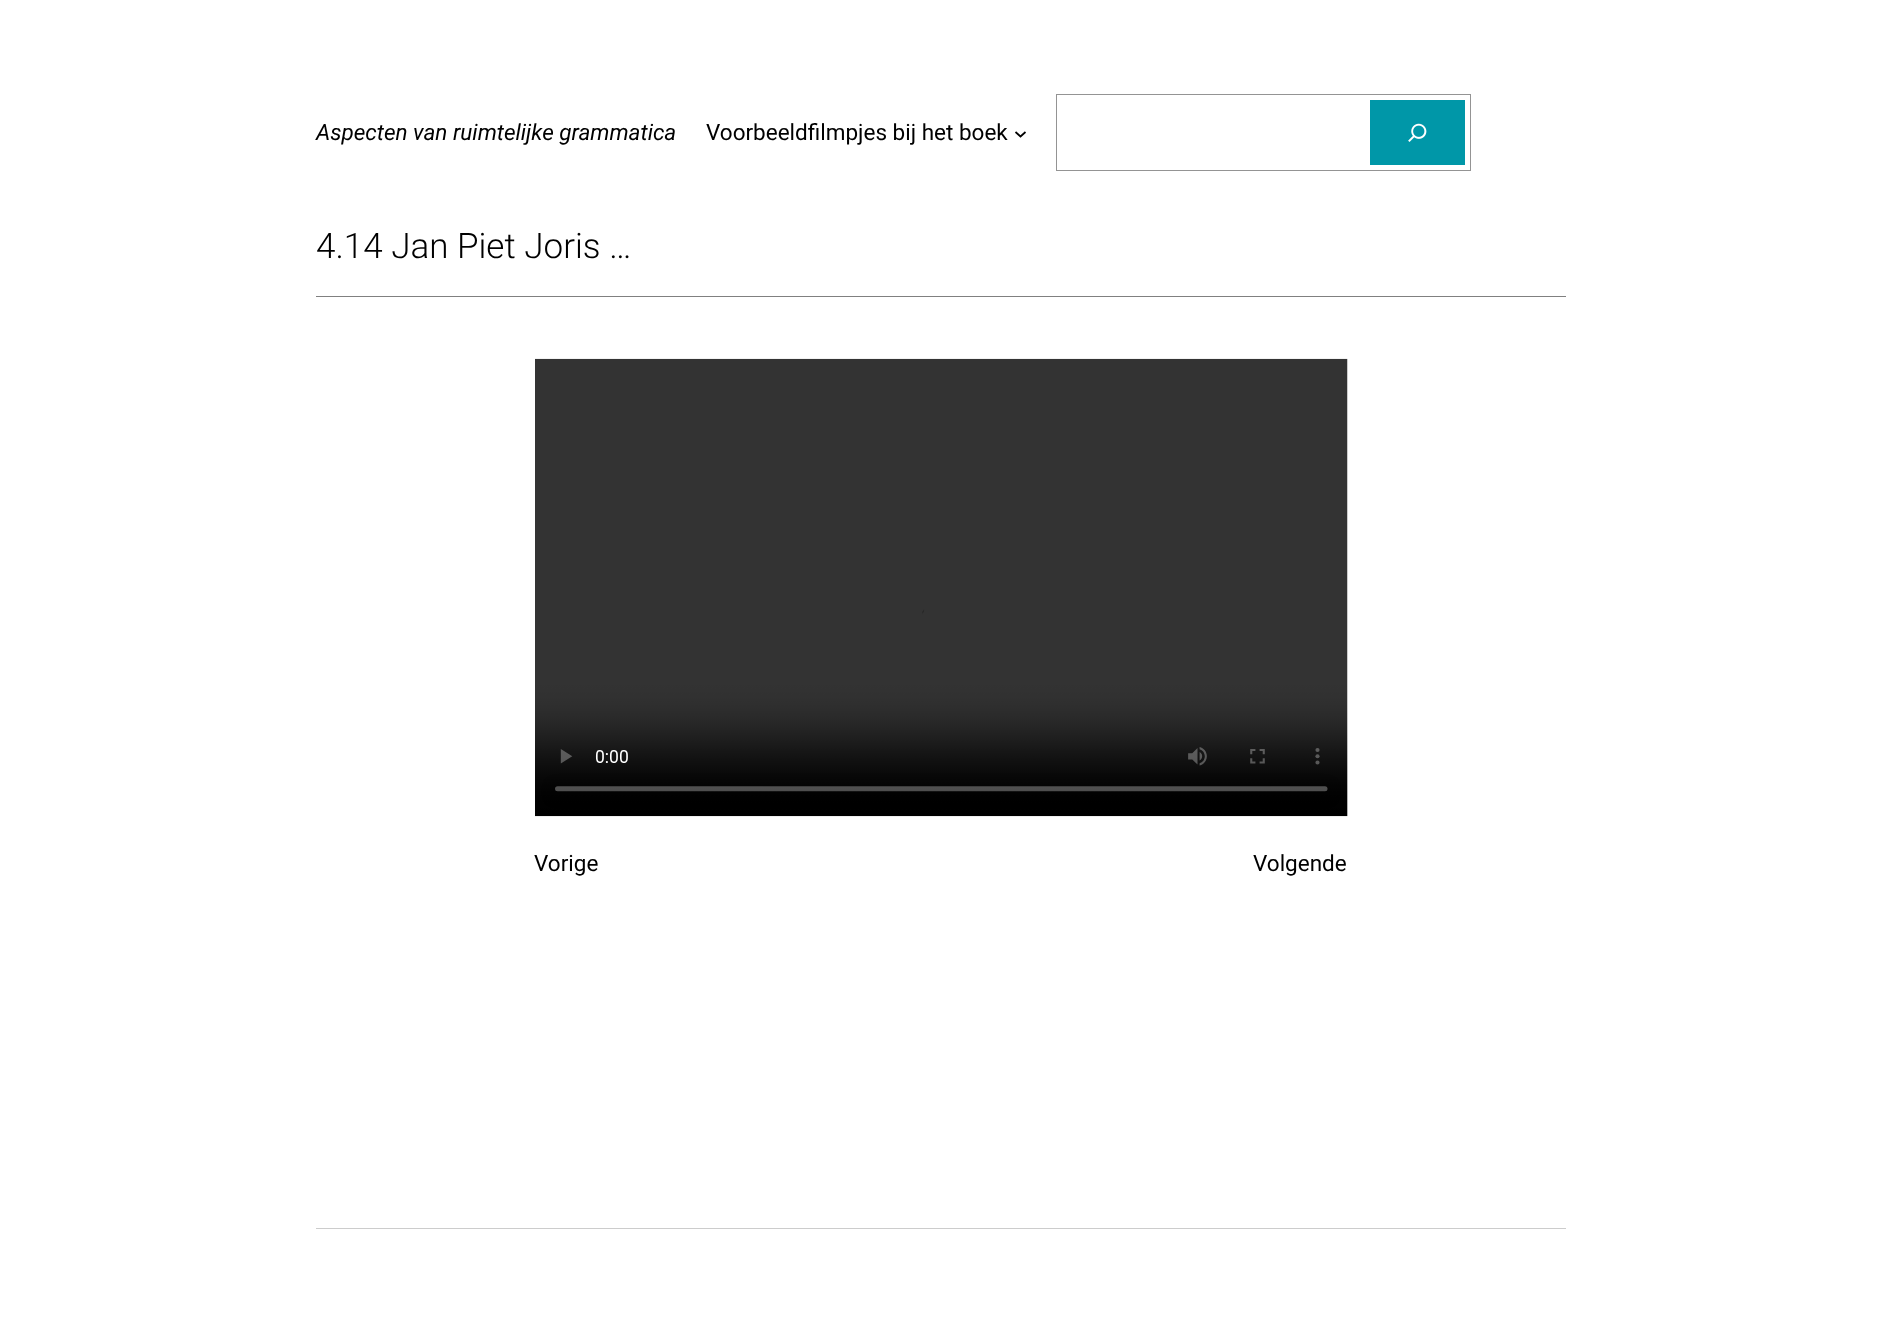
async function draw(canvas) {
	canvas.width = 1881;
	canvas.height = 1326;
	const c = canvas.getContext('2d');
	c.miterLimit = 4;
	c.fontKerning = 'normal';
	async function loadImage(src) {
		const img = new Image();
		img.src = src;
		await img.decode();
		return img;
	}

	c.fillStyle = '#fff';
	c.fillRect(0, 0, 1881, 1326);
	c.font = 'italic 22.5px Roboto';
	c.fillStyle = '#000';
	c.fillText('Aspecten van ruimtelijke grammatica', 316, 140);
	c.font = '22.5px Roboto';
	c.fillText('Voorbeeldfilmpjes bij het boek', 706, 140);
	c.beginPath();
	c.moveTo(1015.5, 132);
	c.lineTo(1020.5, 136.5);
	c.lineTo(1025.5, 132);
	c.strokeStyle = '#000';
	c.lineWidth = 1.7;
	c.stroke();
	c.strokeStyle = '#949494';
	c.lineWidth = 1;
	c.strokeRect(1056.5, 94.5, 414, 76);
	c.fillStyle = '#0097a8';
	c.fillRect(1370, 100, 95, 65);
	c.drawImage(await loadImage('img1.png'), 1408, 123, 19, 19);
	c.font = '300 35px Roboto';
	c.fillStyle = '#000';
	c.fillText('4.14 Jan Piet Joris …', 316, 258);
	c.fillStyle = '#808080';
	c.fillRect(316, 296, 1250, 1);
	c.drawImage(await loadImage('img2.png'), 535, 358, 813, 459);
	c.font = '22.5px Roboto';
	c.fillStyle = '#000';
	c.fillText('Vorige', 534, 871);
	c.fillText('Volgende', 1253, 871);
	c.fillStyle = '#ccc';
	c.fillRect(316, 1228, 1250, 1);
}

draw(document.querySelector('canvas'));
